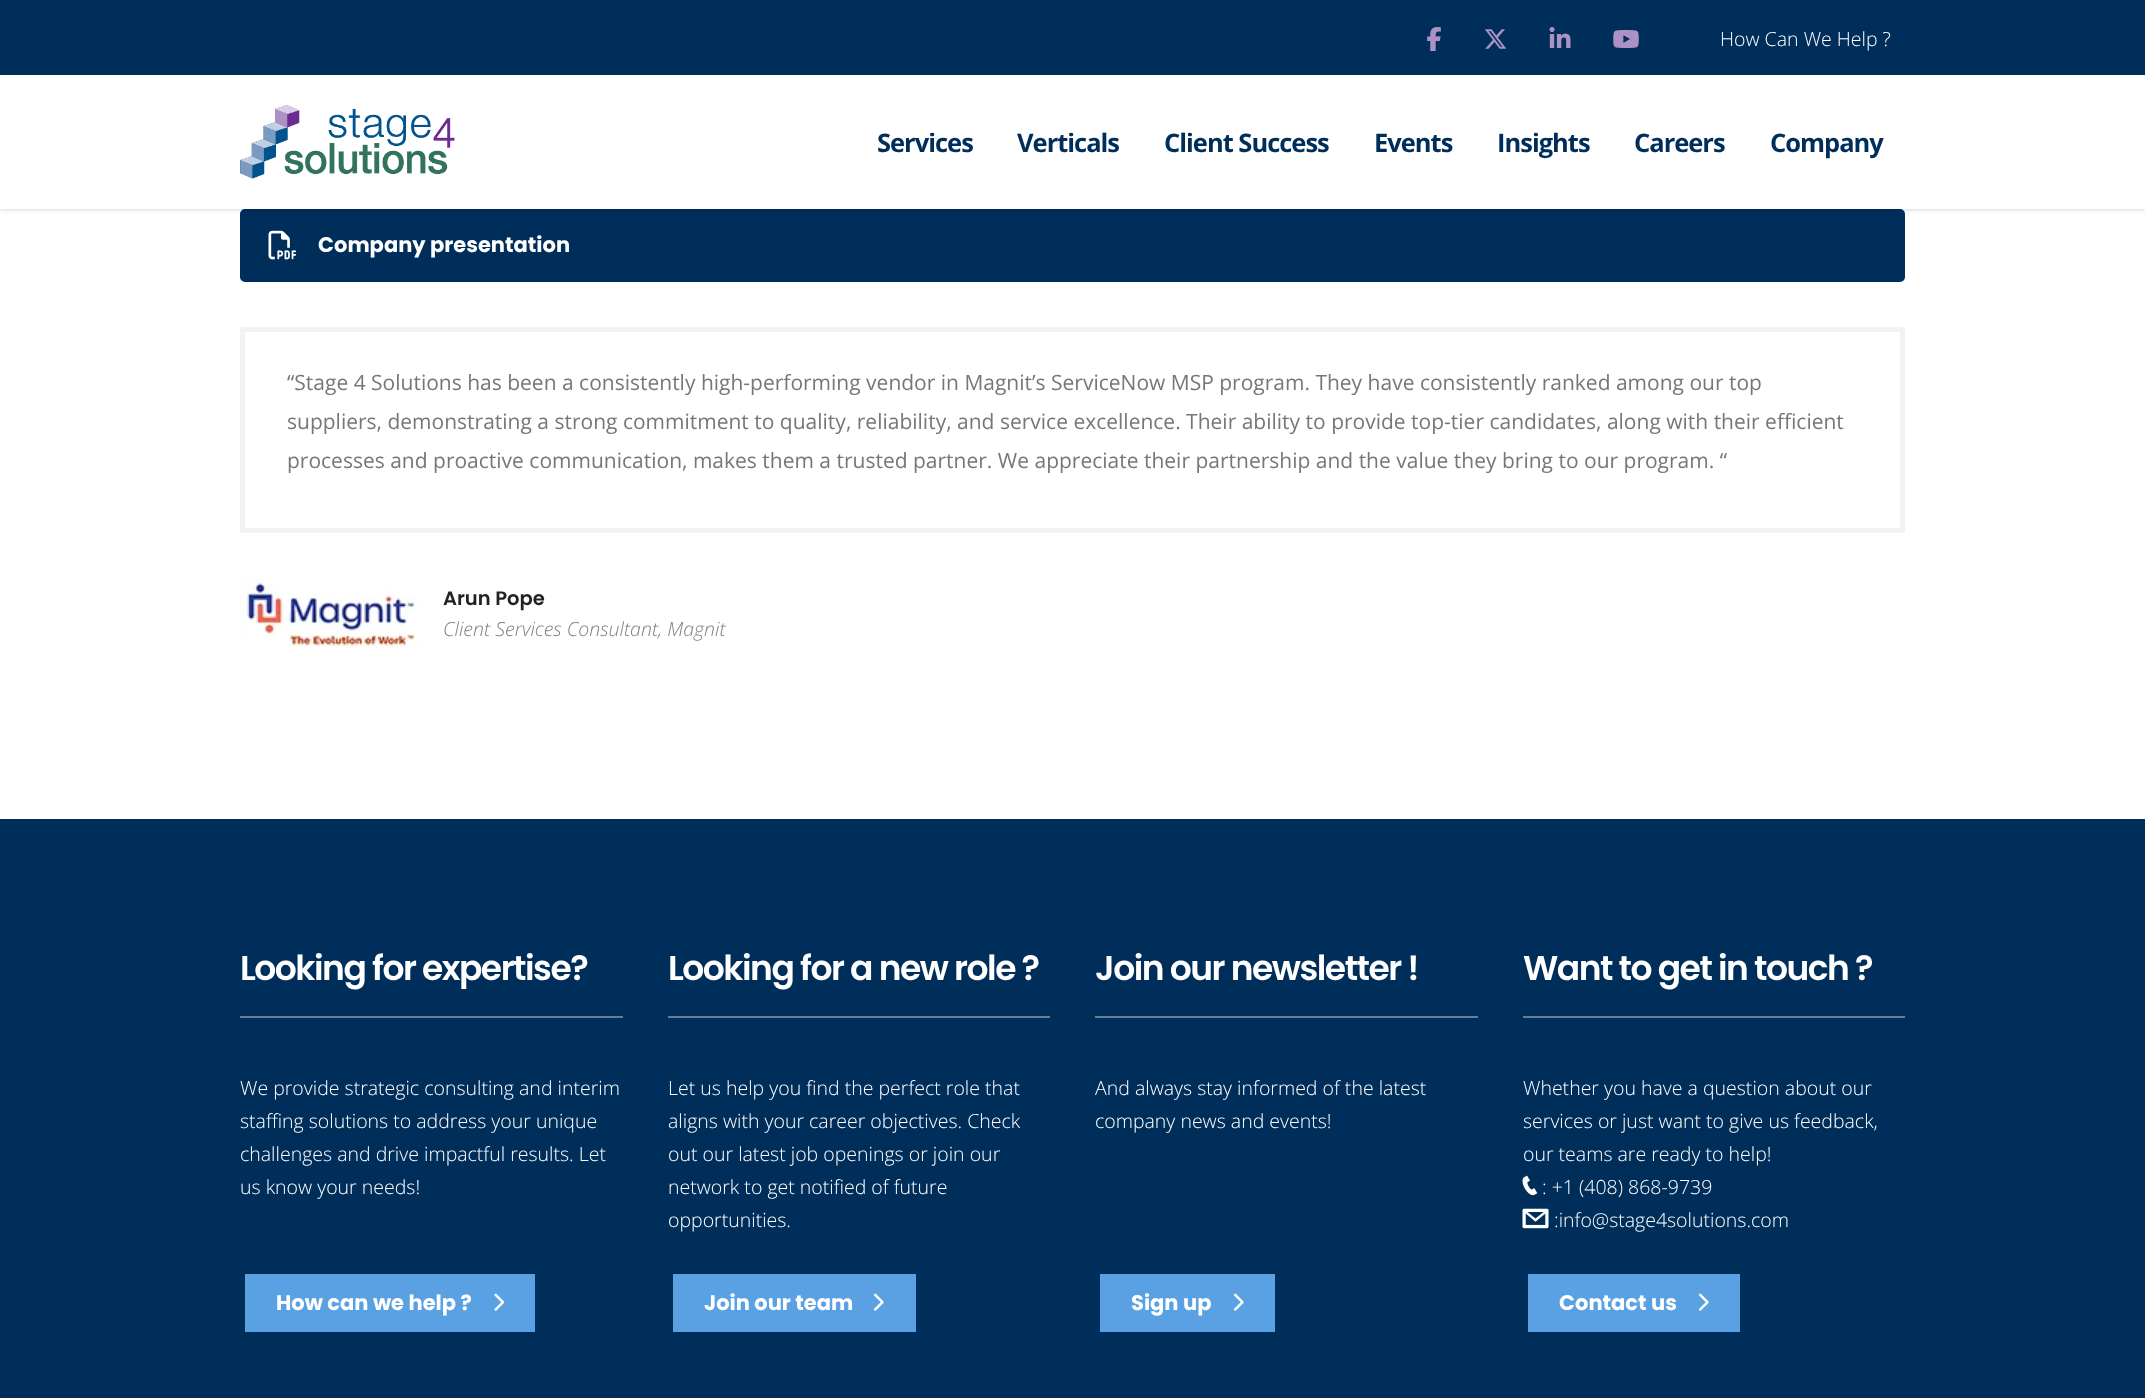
async function draw(canvas) {
	canvas.width = 2145;
	canvas.height = 1398;
	const c = canvas.getContext('2d');
	c.miterLimit = 4;
	c.fontKerning = 'normal';
	async function loadImage(src) {
		const img = new Image();
		img.src = src;
		await img.decode();
		return img;
	}

	c.fillStyle = '#fff';
	c.fillRect(0, 0, 2145, 1398);
	c.fillStyle = '#002e5b';
	c.beginPath();
	c.roundRect(242.5, 211.5, 1660, 68, 2.5);
	c.fill();
	c.strokeStyle = '#002e5b';
	c.lineWidth = 5;
	c.stroke();
	c.save();
	c.beginPath();
	c.moveTo(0, 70);
	c.lineTo(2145, 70);
	c.lineTo(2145, 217);
	c.lineTo(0, 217);
	c.closePath();
	c.moveTo(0, 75);
	c.lineTo(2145, 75);
	c.lineTo(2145, 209);
	c.lineTo(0, 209);
	c.closePath();
	c.clip('evenodd');
	c.fillStyle = '#00000026';
	c.filter = 'blur(2px)';
	c.beginPath();
	c.rect(0, 77, 2145, 133);
	c.fill();
	c.filter = 'none';
	c.restore();
	c.fillRect(0, 0, 2145, 75);
	c.drawImage(await loadImage('img1.png'), 1427, 27, 14, 24);
	c.drawImage(await loadImage('img2.png'), 1484, 29, 23, 20);
	c.drawImage(await loadImage('img3.png'), 1549, 27, 22, 21);
	c.drawImage(await loadImage('img4.png'), 1613, 30, 26, 18);
	c.font = '300 19.5px Open Sans';
	c.fillStyle = '#fff';
	c.fillText('How Can We Help ?', 1720, 46);
	c.fillStyle = '#ffffffcc';
	c.fillRect(0, 208, 2145, 1);
	c.drawImage(await loadImage('img5.png'), 240, 105, 215, 74);
	c.letterSpacing = '-1px';
	c.font = 'bold 25.5px Open Sans';
	c.fillStyle = '#002e5b';
	for (const [text, x, y] of [
		['Services', 877, 152],
		['Verticals', 1017, 152],
		['Client Success', 1164, 152],
		['Events', 1374, 152],
		['Insights', 1497, 152],
		['Careers', 1634, 152],
		['Company', 1770, 152],
	]) {
		c.fillText(text, x, y);
	}
	c.drawImage(await loadImage('img6.png'), 268, 230, 29, 30);
	c.letterSpacing = '0px';
	c.font = 'bold 21px Poppins';
	c.fillStyle = '#fff';
	c.fillText('Company presentation', 318, 252);
	c.strokeStyle = '#f2f2f2';
	c.strokeRect(242.5, 329.5, 1660, 201);
	c.font = '21px Open Sans';
	c.fillStyle = '#777';
	for (const [text, x, y] of [
		['“Stage 4 Solutions has been a consistently high-performing vendor in Magnit’s ServiceNow MSP program. They have consistently ranked among our top', 287, 390],
		['suppliers, demonstrating a strong commitment to quality, reliability, and service excellence. Their ability to provide top-tier candidates, along with their efficient', 287, 429],
		['processes and proactive communication, makes them a trusted partner. We appreciate their partnership and the value they bring to our program. “', 287, 468],
	]) {
		c.fillText(text, x, y);
	}
	c.drawImage(await loadImage('img7.png'), 240, 575, 180, 73);
	c.font = '600 19.5px Poppins';
	c.fillStyle = '#222';
	c.fillText('Arun Pope', 443, 605);
	c.font = 'italic 300 19.5px Open Sans';
	c.fillStyle = '#808080';
	c.fillText('Client Services Consultant, Magnit', 443, 636);
	c.fillStyle = '#002e5b';
	c.fillRect(0, 819, 2145, 579);
	c.fillStyle = '#667d94';
	c.fillRect(240, 1016, 383, 2);
	c.letterSpacing = '-1.5px';
	c.font = '600 34.5px Poppins';
	c.fillStyle = '#fff';
	c.fillText('Looking for expertise?', 240, 980);
	c.letterSpacing = '0px';
	c.font = '300 19.5px Open Sans';
	for (const [text, x, y] of [
		['We provide strategic consulting and interim', 240, 1095],
		['staffing solutions to address your unique', 240, 1128],
		['challenges and drive impactful results. Let', 240, 1161],
		['us know your needs!', 240, 1194],
	]) {
		c.fillText(text, x, y);
	}
	c.fillStyle = '#5aa1e3';
	c.beginPath();
	c.roundRect(242.5, 1271.5, 295, 63, 2.5);
	c.fill();
	c.strokeStyle = '#002e5b';
	c.stroke();
	c.font = 'bold 21px Poppins';
	c.fillStyle = '#fff';
	c.fillText('How can we help ?', 276, 1310);
	c.drawImage(await loadImage('img8.png'), 494, 1293, 11, 18);
	c.fillStyle = '#667d94';
	c.fillRect(668, 1016, 382, 2);
	c.letterSpacing = '-1.5px';
	c.font = '600 34.5px Poppins';
	c.fillStyle = '#fff';
	c.fillText('Looking for a new role ?', 668, 980);
	c.letterSpacing = '0px';
	c.font = '300 19.5px Open Sans';
	for (const [text, x, y] of [
		['Let us help you find the perfect role that', 668, 1095],
		['aligns with your career objectives. Check', 668, 1128],
		['out our latest job openings or join our', 668, 1161],
		['network to get notified of future', 668, 1194],
		['opportunities.', 668, 1227],
	]) {
		c.fillText(text, x, y);
	}
	c.fillStyle = '#5aa1e3';
	c.beginPath();
	c.roundRect(670.5, 1271.5, 248, 63, 2.5);
	c.fill();
	c.stroke();
	c.font = 'bold 21px Poppins';
	c.fillStyle = '#fff';
	c.fillText('Join our team', 704, 1310);
	c.drawImage(await loadImage('img9.png'), 874, 1293, 10, 18);
	c.fillStyle = '#667d94';
	c.fillRect(1095, 1016, 383, 2);
	c.letterSpacing = '-1.5px';
	c.font = '600 34.5px Poppins';
	c.fillStyle = '#fff';
	c.fillText('Join our newsletter !', 1095, 980);
	c.letterSpacing = '0px';
	c.font = '300 19.5px Open Sans';
	c.fillText('And always stay informed of the latest', 1095, 1095);
	c.fillText('company news and events!', 1095, 1128);
	c.fillStyle = '#5aa1e3';
	c.beginPath();
	c.roundRect(1097.5, 1271.5, 180, 63, 2.5);
	c.fill();
	c.stroke();
	c.font = 'bold 21px Poppins';
	c.fillStyle = '#fff';
	c.fillText('Sign up', 1131, 1310);
	c.drawImage(await loadImage('img9.png'), 1234, 1293, 10, 18);
	c.fillStyle = '#667d94';
	c.fillRect(1523, 1016, 382, 2);
	c.letterSpacing = '-1.5px';
	c.font = '600 34.5px Poppins';
	c.fillStyle = '#fff';
	c.fillText('Want to get in touch ?', 1523, 980);
	c.letterSpacing = '0px';
	c.font = '300 19.5px Open Sans';
	for (const [text, x, y] of [
		['Whether you have a question about our', 1523, 1095],
		['services or just want to give us feedback,', 1523, 1128],
		['our teams are ready to help!', 1523, 1161],
	]) {
		c.fillText(text, x, y);
	}
	c.drawImage(await loadImage('img10.png'), 1522, 1175, 16, 21);
	c.fillText(': +1 (408) 868-9739', 1542, 1194);
	c.drawImage(await loadImage('img11.png'), 1522, 1208, 27, 21);
	c.fillText(':info@stage4solutions.com', 1554, 1227);
	c.fillStyle = '#5aa1e3';
	c.beginPath();
	c.roundRect(1525.5, 1271.5, 217, 63, 2.5);
	c.fill();
	c.stroke();
	c.font = 'bold 21px Poppins';
	c.fillStyle = '#fff';
	c.fillText('Contact us', 1559, 1310);
	c.drawImage(await loadImage('img9.png'), 1699, 1293, 10, 18);
}

draw(document.querySelector('canvas'));
